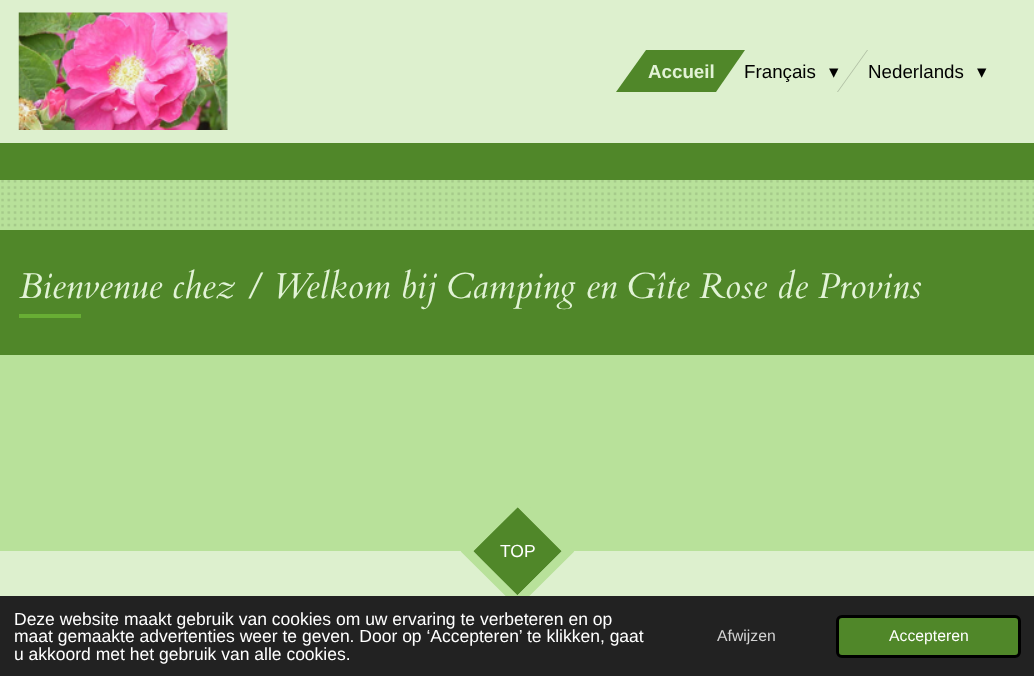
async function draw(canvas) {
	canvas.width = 1034;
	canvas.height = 676;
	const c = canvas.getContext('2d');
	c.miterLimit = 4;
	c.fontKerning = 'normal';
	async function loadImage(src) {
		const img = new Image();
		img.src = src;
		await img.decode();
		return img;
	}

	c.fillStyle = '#b8e19a';
	c.fillRect(0, 0, 1034, 676);
	c.fillStyle = '#508729';
	c.fillRect(0, 143, 1034, 37);
	c.beginPath();
	c.moveTo(725, 180);
	c.lineTo(725, 142.5);
	c.lineTo(762.5, 180);
	c.closePath();
	c.fill();
	c.fillStyle = '#ddf0ce';
	c.fillRect(0, 0, 1034, 143);
	c.drawImage(await loadImage('img1.png'), 18, 12, 210, 118);
	c.fillStyle = '#508729';
	c.beginPath();
	c.moveTo(646, 50);
	c.lineTo(745, 50);
	c.lineTo(716, 92);
	c.lineTo(616, 92);
	c.closePath();
	c.fill();
	c.font = 'bold 18.75px Liberation Sans';
	c.fillStyle = '#e2f3d6';
	c.fillText('Accueil', 648, 78);
	c.font = '18.75px Liberation Sans';
	c.fillStyle = '#000';
	c.fillText('Français', 744, 78);
	c.fillStyle = '#b1c0a5';
	c.beginPath();
	c.moveTo(867, 50);
	c.lineTo(868, 50);
	c.lineTo(838, 92);
	c.lineTo(837, 92);
	c.closePath();
	c.fill();
	c.font = '18.75px DejaVu Sans';
	c.fillStyle = '#000';
	c.fillText('▾', 829, 78);
	c.font = '18.75px Liberation Sans';
	c.fillText('Nederlands', 868, 78);
	c.font = '18.75px DejaVu Sans';
	c.fillText('▾', 977, 78);
	c.drawImage(await loadImage('img2.png'), 1, 180, 1033, 47);
	c.fillStyle = '#508729';
	c.fillRect(0, 230, 1034, 125);
	c.font = 'italic 35.9px Cardo';
	c.fillStyle = '#e2f3d6';
	c.fillText('Bienvenue chez / Welkom bij Camping en Gîte Rose de Provins', 19, 298);
	c.fillStyle = '#68ae34';
	c.fillRect(19, 314, 62, 4);
	c.fillStyle = '#ddf0ce';
	c.fillRect(0, 551, 1034, 45);
	c.fillStyle = '#508729';
	c.beginPath();
	c.moveTo(518, 507);
	c.lineTo(562, 551);
	c.lineTo(517, 596);
	c.lineTo(473, 551);
	c.closePath();
	c.fill();
	c.beginPath();
	c.moveTo(517.5, 501);
	c.lineTo(568, 551.5);
	c.lineTo(517.5, 601.5);
	c.lineTo(467, 551.5);
	c.closePath();
	c.strokeStyle = '#b8e19a';
	c.lineWidth = 8.8;
	c.stroke();
	c.font = '17.5px Liberation Sans';
	c.fillStyle = '#fff';
	c.fillText('TOP', 500, 557);
	c.fillStyle = '#222';
	c.fillRect(0, 596, 1034, 80);
	c.fillStyle = '#fff';
	for (const [text, x, y] of [
		['Deze website maakt gebruik van cookies om uw ervaring te verbeteren en op', 14, 625],
		['maat gemaakte advertenties weer te geven. Door op ‘Accepteren’ te klikken, gaat', 14, 642],
		['u akkoord met het gebruik van alle cookies.', 14, 660],
	]) {
		c.fillText(text, x, y);
	}
	c.font = '15.75px Liberation Sans';
	c.fillStyle = '#d3d3d3';
	c.fillText('Afwijzen', 717, 641);
	c.fillStyle = '#508729';
	c.beginPath();
	c.roundRect(837.5, 616.5, 182, 40, 4.5);
	c.fill();
	c.strokeStyle = '#000';
	c.lineWidth = 3;
	c.stroke();
	c.fillStyle = '#fff';
	c.fillText('Accepteren', 889, 641);
}

draw(document.querySelector('canvas'));
